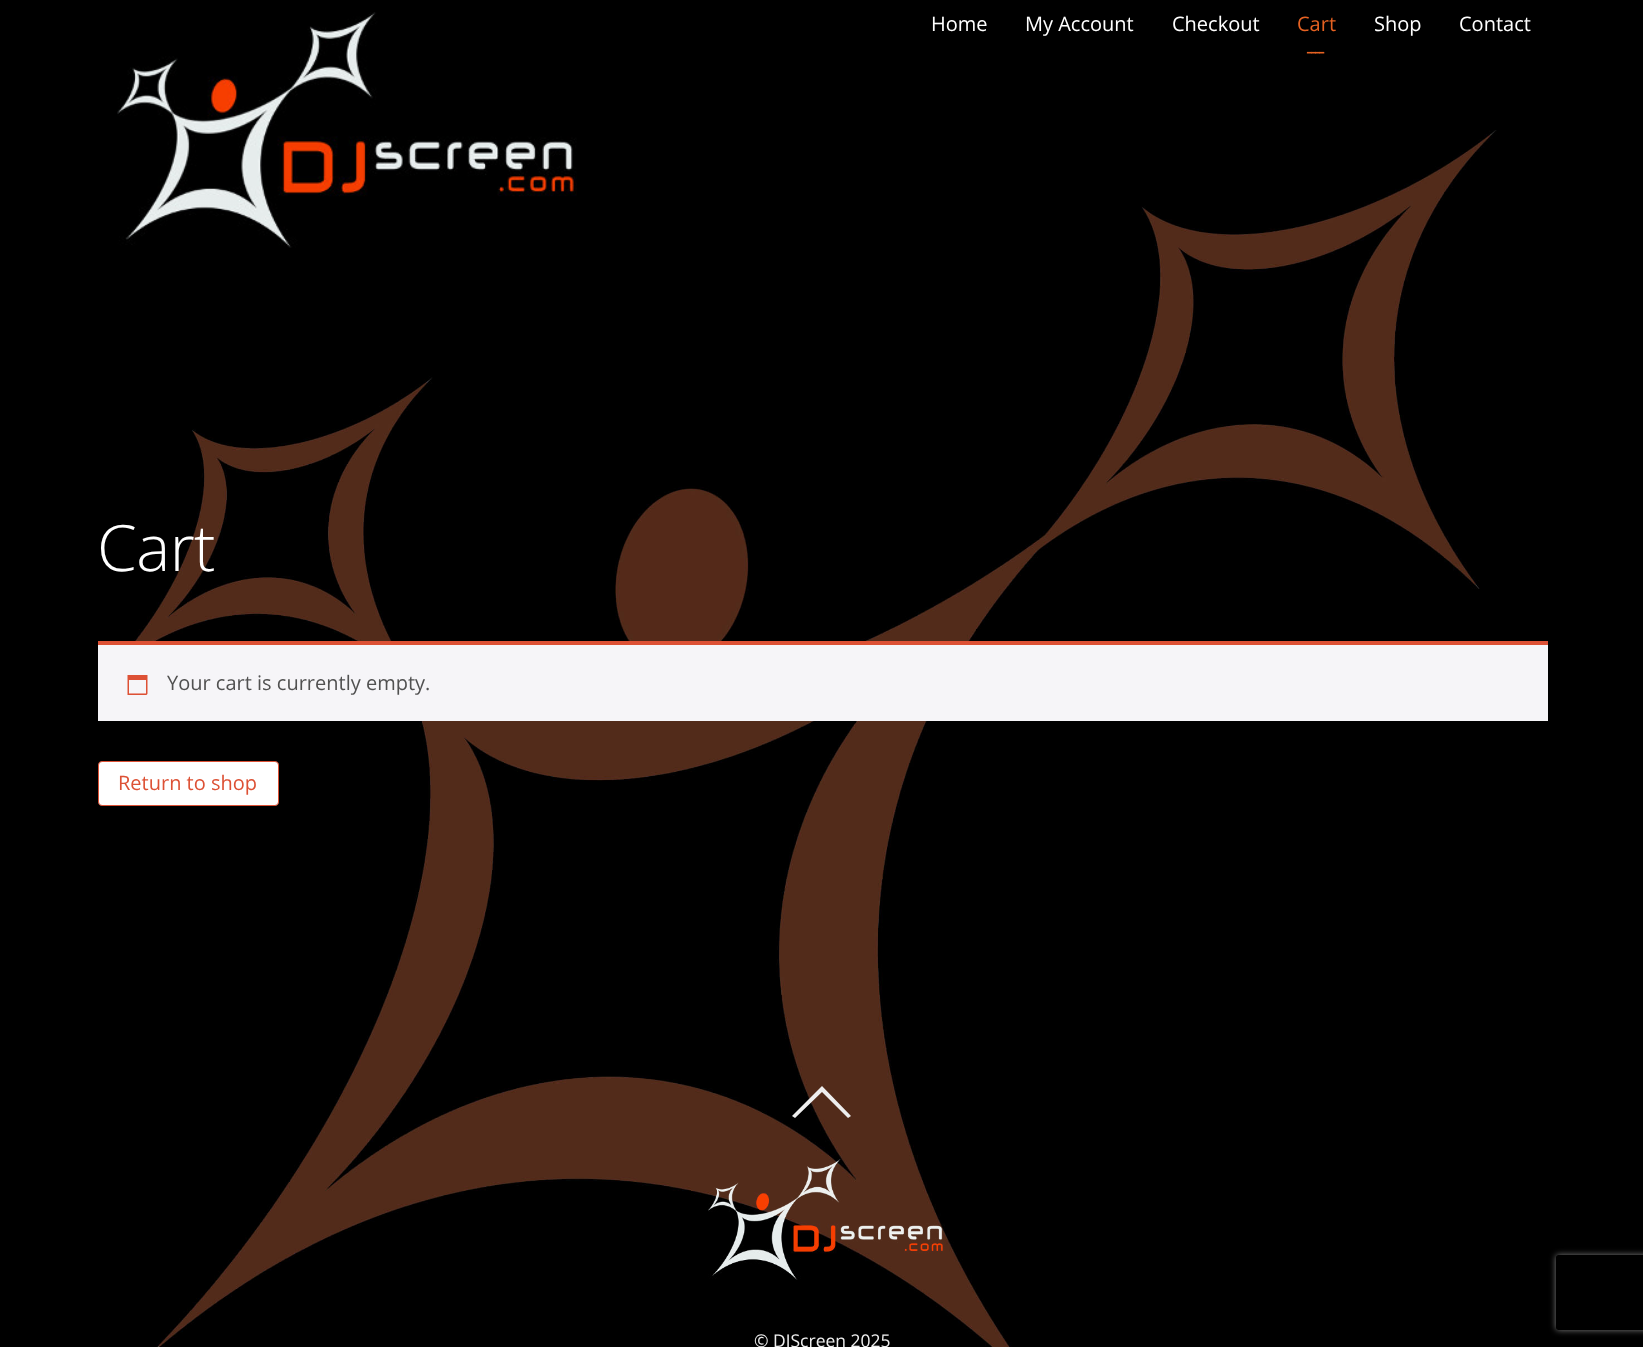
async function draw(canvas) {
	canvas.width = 1643;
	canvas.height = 1347;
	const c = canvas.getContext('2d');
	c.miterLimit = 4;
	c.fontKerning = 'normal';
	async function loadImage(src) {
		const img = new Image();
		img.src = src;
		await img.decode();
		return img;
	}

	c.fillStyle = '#000';
	c.fillRect(0, 0, 1643, 1347);
	c.drawImage(await loadImage('img1.png'), 107, 130, 1390, 1217);
	c.drawImage(await loadImage('img2.png'), 117, 12, 460, 236);
	c.font = '20px Open Sans';
	c.fillStyle = '#fff';
	for (const [text, x, y] of [
		['Home', 931, 31],
		['My Account', 1025, 31],
		['Checkout', 1172, 31],
	]) {
		c.fillText(text, x, y);
	}
	c.fillStyle = '#e66222';
	c.fillText('Cart', 1297, 31);
	c.letterSpacing = '-2.5px';
	c.font = '20px Liberation Sans';
	c.fillText('----', 1306, 58);
	c.letterSpacing = '0px';
	c.font = '20px Open Sans';
	c.fillStyle = '#fff';
	c.fillText('Shop', 1374, 31);
	c.fillText('Contact', 1459, 31);
	c.letterSpacing = '-0.5px';
	c.font = '300 64px Open Sans';
	c.fillText('Cart', 97, 571);
	c.fillStyle = '#f6f5f8';
	c.fillRect(98, 645, 1450, 76);
	c.fillStyle = '#dd5135';
	c.fillRect(98, 641, 1450, 4);
	c.drawImage(await loadImage('img3.png'), 127, 675, 21, 20);
	c.letterSpacing = '0px';
	c.font = '20px Open Sans';
	c.fillStyle = '#515151';
	c.fillText('Your cart is currently empty.', 167, 690);
	c.fillStyle = '#fff';
	c.beginPath();
	c.roundRect(98.5, 761.5, 180, 44, 3.5);
	c.fill();
	c.strokeStyle = '#dd5135';
	c.stroke();
	c.fillStyle = '#dd5135';
	c.fillText('Return to shop', 118, 790);
	c.fillStyle = '#eee';
	c.beginPath();
	c.moveTo(851, 1116);
	c.lineTo(848, 1118);
	c.lineTo(822, 1092);
	c.lineTo(795, 1118);
	c.lineTo(792, 1116);
	c.lineTo(822, 1086);
	c.closePath();
	c.fill();
	c.drawImage(await loadImage('img4.png'), 708, 1159, 237, 121);
	c.font = '17.5px Open Sans';
	c.fillText('© DJScreen 2025', 754, 1347);
	c.save();
	c.beginPath();
	c.moveTo(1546, 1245);
	c.lineTo(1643, 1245);
	c.lineTo(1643, 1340);
	c.lineTo(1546, 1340);
	c.closePath();
	c.moveTo(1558.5, 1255);
	c.lineTo(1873.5, 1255);
	c.bezierCurveTo(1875, 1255, 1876, 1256, 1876, 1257.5);
	c.lineTo(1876, 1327.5);
	c.bezierCurveTo(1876, 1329, 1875, 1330, 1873.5, 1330);
	c.lineTo(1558.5, 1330);
	c.bezierCurveTo(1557, 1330, 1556, 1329, 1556, 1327.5);
	c.lineTo(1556, 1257.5);
	c.bezierCurveTo(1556, 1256, 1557, 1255, 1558.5, 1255);
	c.closePath();
	c.clip('evenodd');
	c.fillStyle = '#808080';
	c.filter = 'blur(3px)';
	c.beginPath();
	c.roundRect(1556, 1255, 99, 75, 2.5);
	c.fill();
	c.filter = 'none';
	c.restore();
}

draw(document.querySelector('canvas'));
